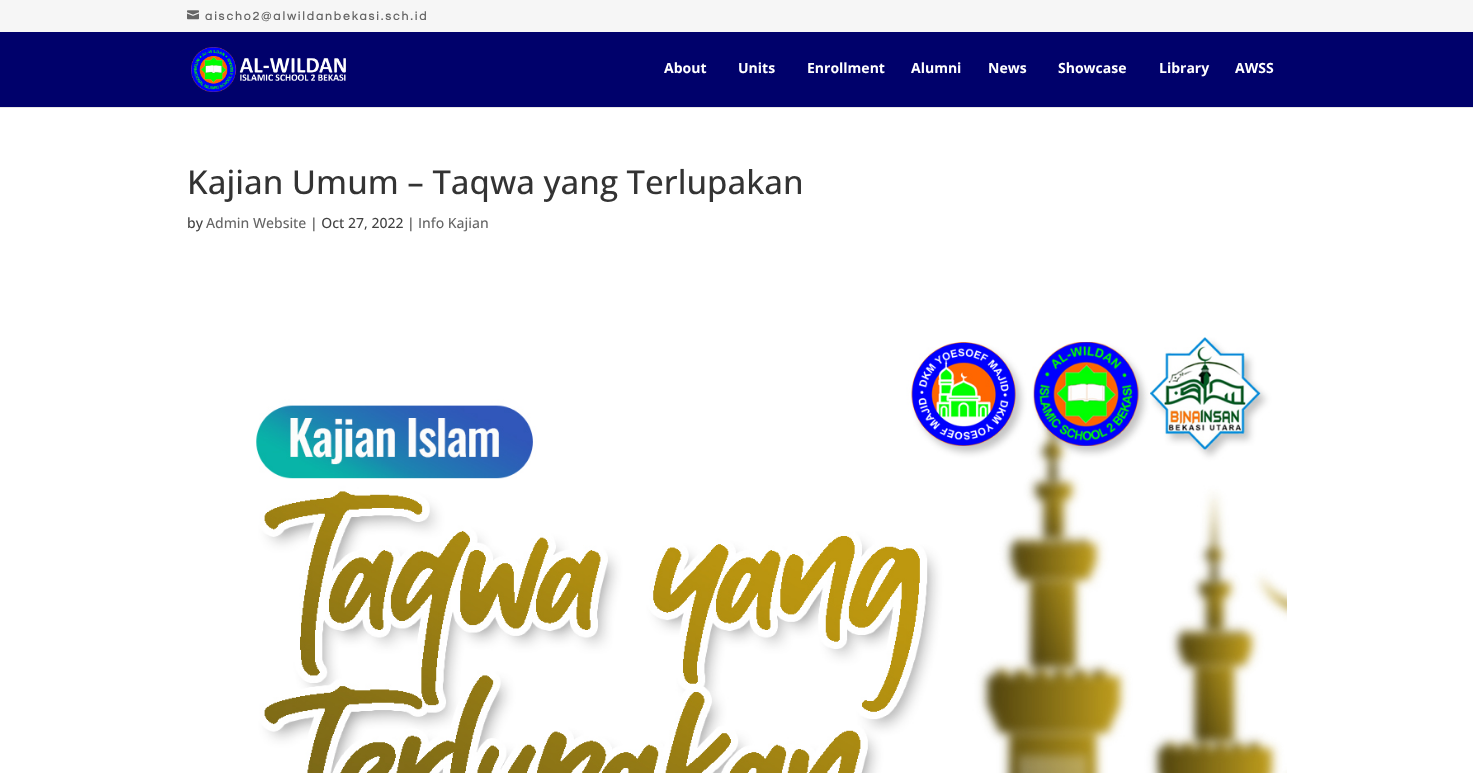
async function draw(canvas) {
	canvas.width = 1473;
	canvas.height = 773;
	const c = canvas.getContext('2d');
	c.miterLimit = 4;
	c.fontKerning = 'normal';
	async function loadImage(src) {
		const img = new Image();
		img.src = src;
		await img.decode();
		return img;
	}

	c.fillStyle = '#f6f6f6';
	c.fillRect(0, 0, 1473, 773);
	c.drawImage(await loadImage('img1.png'), 187, 10, 12, 10);
	c.letterSpacing = '2px';
	c.font = 'bold 12px Questrial';
	c.fillStyle = '#666';
	c.fillText('aischo2@alwildanbekasi.sch.id', 205, 20);
	c.fillStyle = '#e6e6e6';
	c.fillRect(0, 107, 1473, 1);
	c.fillStyle = '#00016b';
	c.fillRect(0, 32, 1473, 75);
	c.drawImage(await loadImage('img2.png'), 191, 47, 155, 45);
	c.letterSpacing = '0px';
	c.font = 'bold 14px Open Sans';
	c.fillStyle = '#fff';
	for (const [text, x, y] of [
		['About', 664, 73],
		['Units', 738, 73],
		['Enrollment', 807, 73],
		['Alumni', 911, 73],
		['News', 988, 73],
		['Showcase', 1058, 73],
		['Library', 1159, 73],
		['AWSS', 1235, 73],
	]) {
		c.fillText(text, x, y);
	}
	c.fillRect(0, 108, 1473, 665);
	c.font = '500 33px Open Sans';
	c.fillStyle = '#333';
	c.fillText('Kajian Umum – Taqwa yang Terlupakan', 187, 194);
	c.font = '500 14px Open Sans';
	c.fillStyle = '#424242';
	c.fillText('by', 187, 228);
	c.fillStyle = '#666';
	c.fillText('Admin Website', 206, 228);
	c.fillStyle = '#424242';
	c.fillText('| Oct 27, 2022 |', 310, 228);
	c.fillStyle = '#666';
	c.fillText('Info Kajian', 418, 228);
	c.drawImage(await loadImage('img3.png'), 256, 337, 1031, 436);
}

draw(document.querySelector('canvas'));
